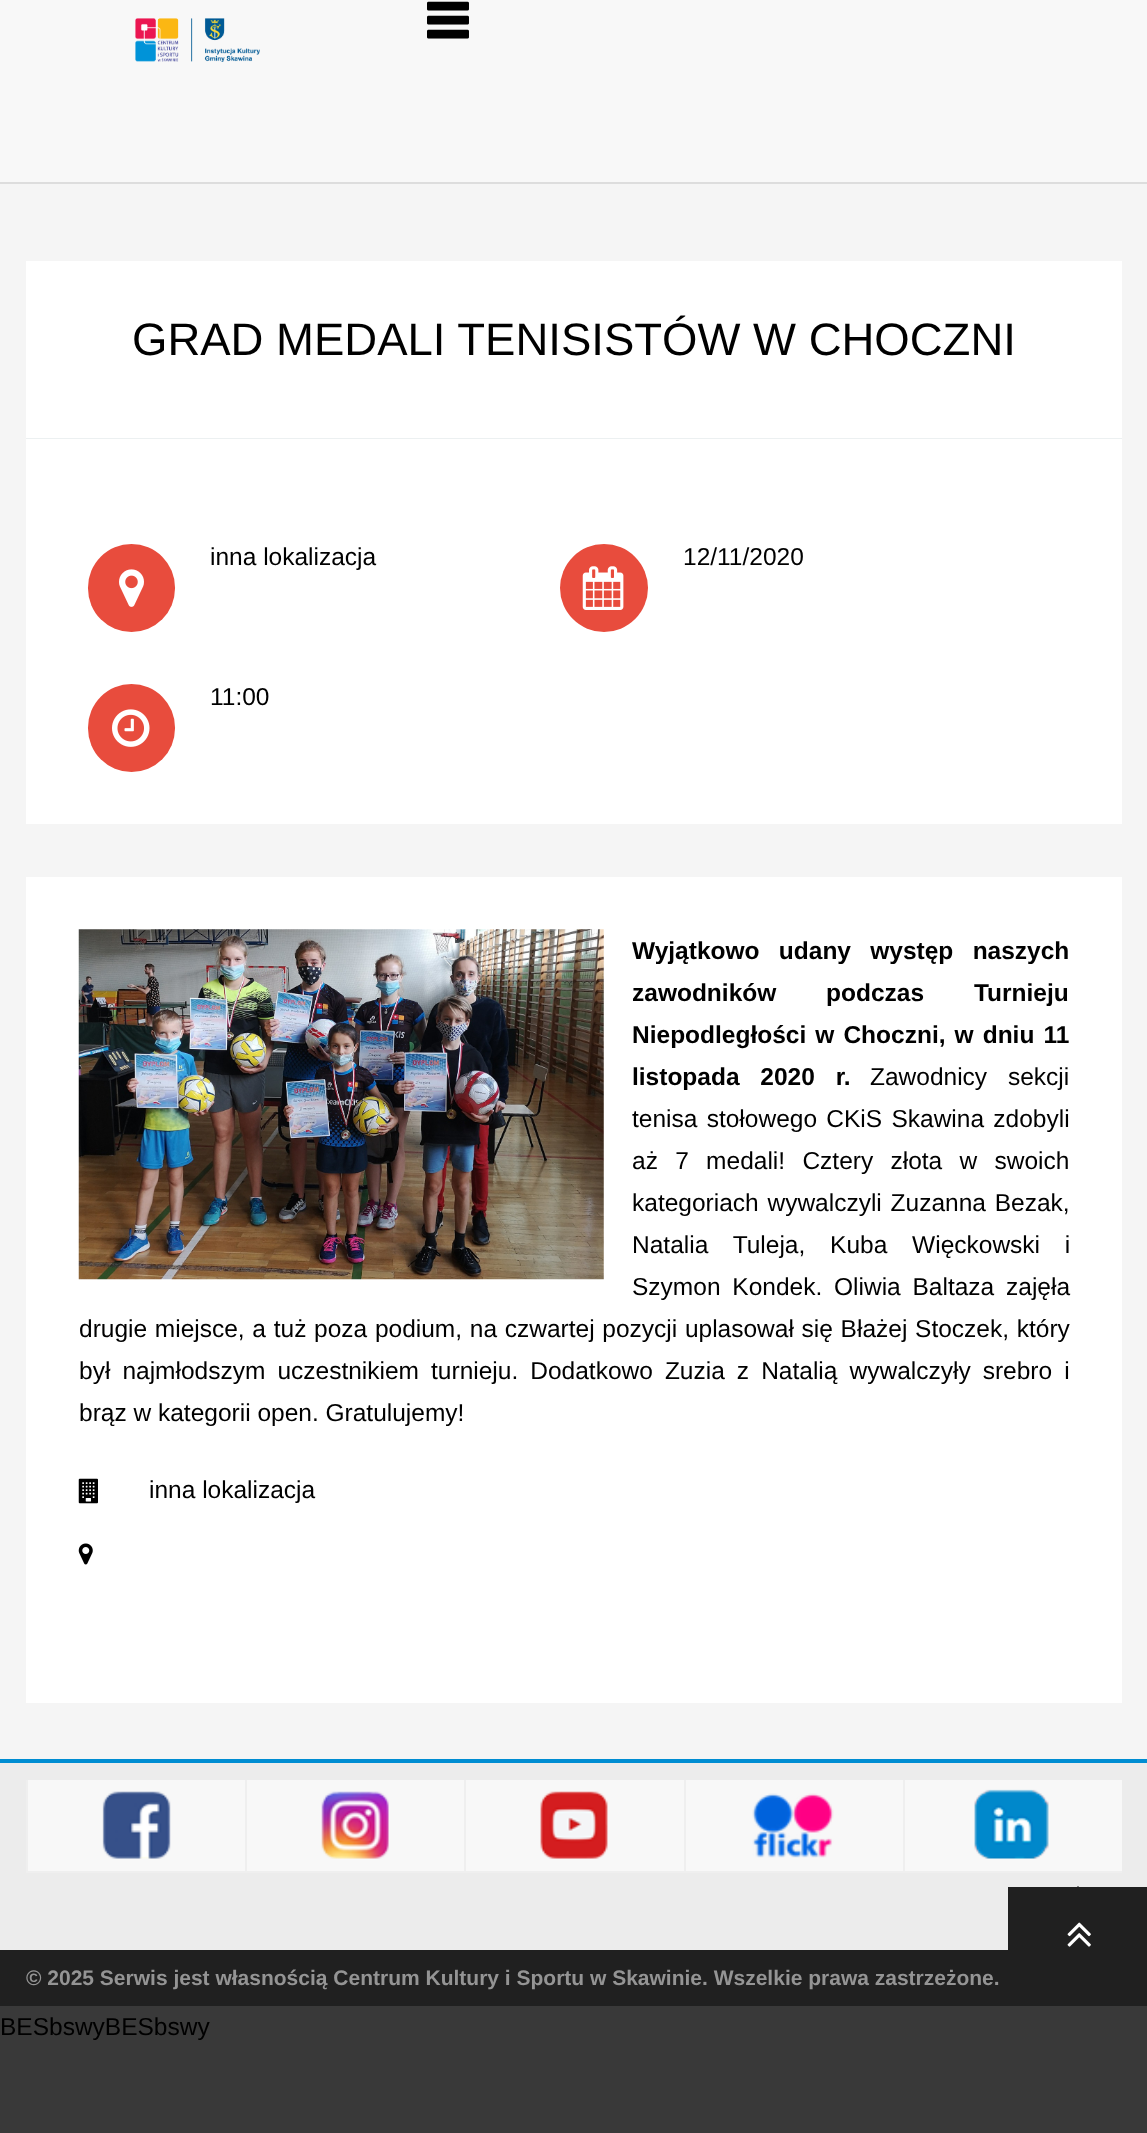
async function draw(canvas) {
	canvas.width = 1147;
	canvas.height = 2133;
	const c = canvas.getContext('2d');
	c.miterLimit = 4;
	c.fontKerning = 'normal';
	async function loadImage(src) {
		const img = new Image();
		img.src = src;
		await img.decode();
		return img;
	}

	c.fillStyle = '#393939';
	c.fillRect(0, 0, 1147, 2133);
	c.fillStyle = '#f8f8f8';
	c.fillRect(0, 0, 1147, 182);
	c.fillStyle = '#ddd';
	c.fillRect(0, 182, 1147, 2);
	c.drawImage(await loadImage('img1.png'), 135, 18, 125, 44);
	c.drawImage(await loadImage('img2.png'), 427, 1, 42, 38);
	for (const [x, y, w, h, color] of [
		[0, 184, 1147, 1575, '#f5f5f5'],
		[26, 261, 1096, 177, '#fff'],
		[26, 438, 1096, 1, '#ecf0f1'],
	]) {
		c.fillStyle = color;
		c.fillRect(x, y, w, h);
	}
	c.font = '45.5px Liberation Sans';
	c.fillStyle = '#000';
	c.fillText('GRAD MEDALI TENISISTÓW W CHOCZNI', 132, 355);
	c.fillStyle = '#fff';
	c.fillRect(26, 439, 1096, 385);
	c.fillStyle = '#e84c3d';
	c.beginPath();
	c.roundRect(88, 544, 87, 88, 43.5);
	c.fill();
	c.drawImage(await loadImage('img3.png'), 119, 569, 25, 38);
	c.font = '24.5px Liberation Sans';
	c.fillStyle = '#000';
	c.fillText('inna lokalizacja', 210, 565);
	c.fillStyle = '#e84c3d';
	c.beginPath();
	c.arc(604, 588, 44, 0, 2 * Math.PI);
	c.fill();
	c.drawImage(await loadImage('img4.png'), 582, 566, 42, 44);
	c.fillStyle = '#000';
	c.fillText('12/11/2020', 683, 565);
	c.fillStyle = '#e84c3d';
	c.beginPath();
	c.roundRect(88, 684, 87, 88, 43.5);
	c.fill();
	c.drawImage(await loadImage('img5.png'), 112, 709, 38, 38);
	c.fillStyle = '#000';
	c.fillText('11:00', 210, 705);
	c.fillStyle = '#fff';
	c.fillRect(26, 877, 1096, 826);
	c.drawImage(await loadImage('img6.png'), 78, 929, 526, 351);
	c.wordSpacing = '12.5px';
	c.font = 'bold 24.5px Liberation Sans';
	c.fillStyle = '#000';
	c.fillText('Wyjątkowo udany występ naszych', 632, 959);
	c.wordSpacing = '43px';
	c.fillText('zawodników podczas Turnieju', 632, 1001);
	c.wordSpacing = '2.25px';
	c.fillText('Niepodległości w Choczni, w dniu 11', 632, 1043);
	c.wordSpacing = '14px';
	c.fillText('listopada 2020 r.', 632, 1085);
	c.font = '24.5px Liberation Sans';
	c.fillText('Zawodnicy sekcji', 870, 1085);
	c.wordSpacing = '2.5px';
	c.fillText('tenisa stołowego CKiS Skawina zdobyli', 632, 1127);
	c.wordSpacing = '10.5px';
	c.fillText('aż 7 medali! Cztery złota w swoich', 632, 1169);
	c.wordSpacing = '2px';
	c.fillText('kategoriach wywalczyli Zuzanna Bezak,', 632, 1211);
	c.wordSpacing = '18px';
	c.fillText('Natalia Tuleja, Kuba Więckowski i', 632, 1253);
	c.wordSpacing = '5px';
	c.fillText('Szymon Kondek. Oliwia Baltaza zajęła', 632, 1295);
	c.wordSpacing = '0.9px';
	c.fillText('drugie miejsce, a tuż poza podium, na czwartej pozycji uplasował się Błażej Stoczek, który', 79, 1337);
	c.wordSpacing = '5.25px';
	c.fillText('był najmłodszym uczestnikiem turnieju. Dodatkowo Zuzia z Natalią wywalczyły srebro i', 79, 1379);
	c.wordSpacing = '0px';
	c.fillText('brąz w kategorii open. Gratulujemy!', 79, 1421);
	c.drawImage(await loadImage('img7.png'), 78, 1478, 20, 26);
	c.fillText('inna lokalizacja', 149, 1498);
	c.drawImage(await loadImage('img8.png'), 78, 1543, 15, 22);
	for (const [x, y, w, h, color] of [
		[0, 1763, 1147, 187, '#ececec'],
		[0, 1759, 1147, 4, '#008dd2'],
		[28, 1780, 217, 91, '#f8f8f8'],
	]) {
		c.fillStyle = color;
		c.fillRect(x, y, w, h);
	}
	c.drawImage(await loadImage('img9.png'), 102, 1791, 69, 68);
	for (const [x, y, w, h, color] of [
		[26, 1871, 1096, 2, '#efefef'],
		[26, 1780, 2, 93, '#efefef'],
		[247, 1780, 217, 91, '#f8f8f8'],
	]) {
		c.fillStyle = color;
		c.fillRect(x, y, w, h);
	}
	c.drawImage(await loadImage('img10.png'), 321, 1791, 68, 68);
	c.fillStyle = '#efefef';
	c.fillRect(245, 1780, 2, 93);
	c.fillStyle = '#f8f8f8';
	c.fillRect(466, 1780, 218, 91);
	c.drawImage(await loadImage('img11.png'), 540, 1791, 68, 68);
	c.fillStyle = '#efefef';
	c.fillRect(464, 1780, 2, 93);
	c.fillStyle = '#f8f8f8';
	c.fillRect(686, 1780, 217, 91);
	c.drawImage(await loadImage('img12.png'), 752, 1793, 82, 65);
	c.fillStyle = '#efefef';
	c.fillRect(684, 1780, 2, 93);
	c.fillStyle = '#f8f8f8';
	c.fillRect(905, 1780, 217, 91);
	c.drawImage(await loadImage('img13.png'), 974, 1789, 75, 70);
	c.fillStyle = '#efefef';
	c.fillRect(903, 1780, 2, 93);
	c.fillStyle = '#202020';
	c.fillRect(1008, 1887, 139, 63);
	c.save();
	c.beginPath();
	c.rect(0, 1762, 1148, 188);
	c.clip();
	c.beginPath();
	c.moveTo(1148, 1956);
	c.lineTo(1008, 1956);
	c.lineTo(1078, 1886);
	c.closePath();
	c.fill();
	c.restore();
	c.drawImage(await loadImage('img14.png'), 1067, 1922, 24, 15);
	c.drawImage(await loadImage('img15.png'), 1067, 1933, 24, 14);
	c.fillRect(0, 1950, 1147, 56);
	c.font = 'bold 21px Liberation Sans';
	c.fillStyle = '#949494';
	c.fillText('© 2025 Serwis jest własnością Centrum Kultury i Sportu w Skawinie. Wszelkie prawa zastrzeżone.', 26, 1985);
	c.font = '24.5px Liberation Sans';
	c.fillStyle = '#000';
	c.fillText('BESbswyBESbswy', 0, 2035);
}

draw(document.querySelector('canvas'));
